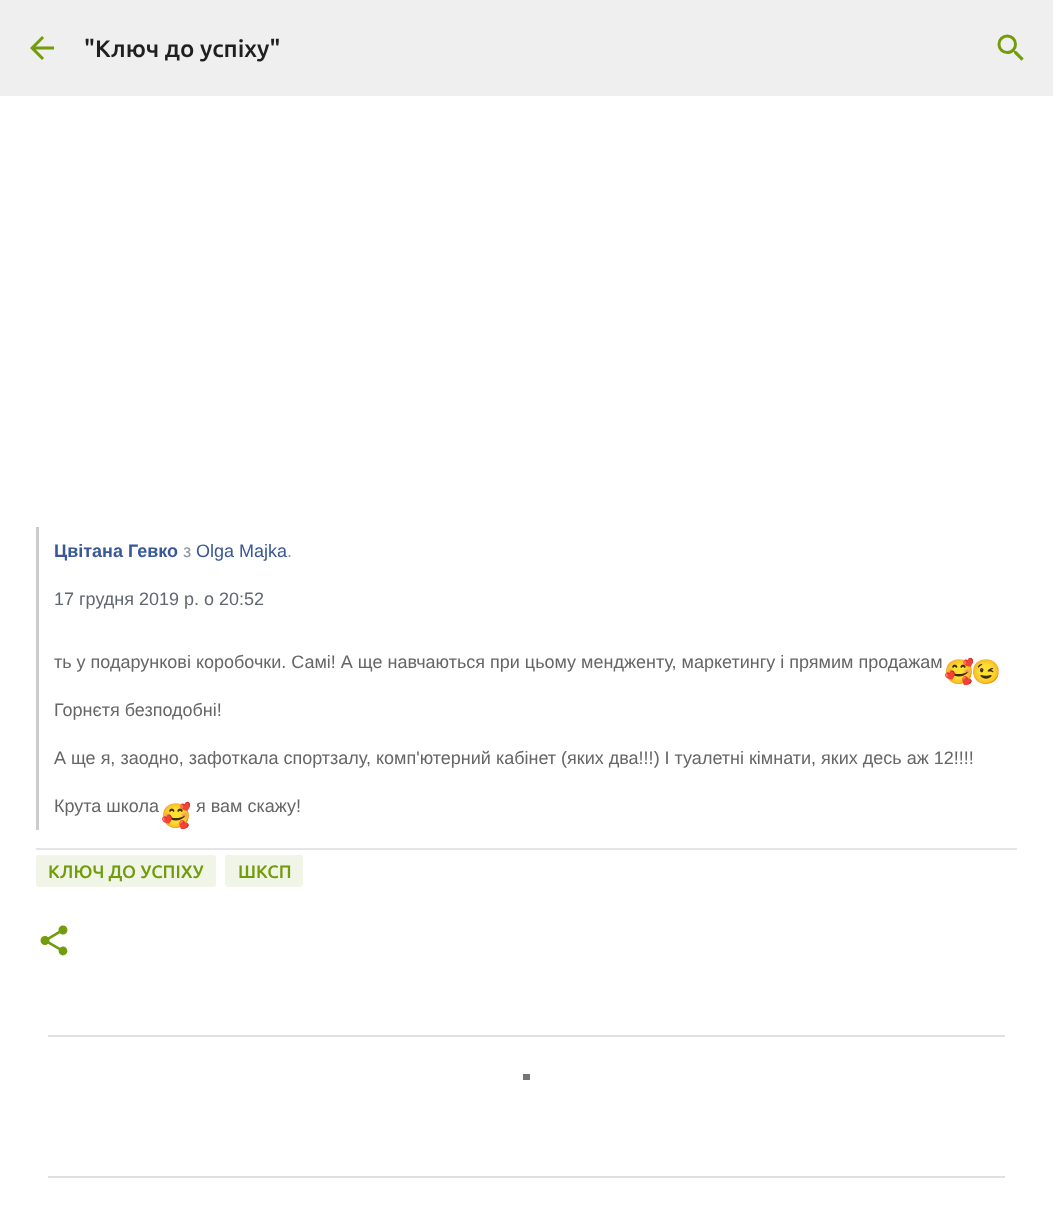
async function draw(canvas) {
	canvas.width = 1053;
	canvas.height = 1226;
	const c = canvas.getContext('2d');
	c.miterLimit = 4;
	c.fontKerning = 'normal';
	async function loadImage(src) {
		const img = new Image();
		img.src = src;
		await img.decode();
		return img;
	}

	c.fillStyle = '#fff';
	c.fillRect(0, 0, 1053, 1226);
	c.fillStyle = '#efefef';
	c.fillRect(0, 0, 1053, 96);
	c.drawImage(await loadImage('img1.png'), 30, 36, 24, 24);
	c.font = '500 24px Ubuntu';
	c.fillStyle = '#1f1f1f';
	c.fillText('"Ключ до успіху"', 84, 57);
	c.drawImage(await loadImage('img2.png'), 997, 34, 27, 27);
	c.fillStyle = '#e5e5e5';
	c.fillRect(36, 848, 981, 2);
	c.fillStyle = '#ccc';
	c.fillRect(36, 527, 3, 303);
	c.font = 'bold 18px Liberation Sans';
	c.fillStyle = '#385898';
	c.fillText('Цвітана Гевко', 54, 557);
	c.font = '18px Liberation Sans';
	c.fillStyle = '#90949c';
	c.fillText('з', 183, 557);
	c.fillStyle = '#385898';
	c.fillText('Olga Majka', 196, 557);
	c.fillStyle = '#90949c';
	c.fillText('.', 287, 557);
	c.fillStyle = '#616770';
	c.fillText('17 грудня 2019 р. о 20:52', 54, 605);
	c.fillStyle = '#666';
	c.fillText('ть у подарункові коробочки. Самі! А ще навчаються при цьому мендженту, маркетингу і прямим продажам', 54, 668);
	c.font = '24px Noto Color Emoji';
	c.fillText('🥰', 944, 680);
	c.fillText('😉', 971, 680);
	c.font = '18px Liberation Sans';
	for (const [text, x, y] of [
		['Горнєтя безподобні!', 54, 716],
		['А ще я, заодно, зафоткала спортзалу, комп\'ютерний кабінет (яких два!!!) І туалетні кімнати, яких десь аж 12!!!!', 54, 764],
		['Крута школа', 54, 812],
	]) {
		c.fillText(text, x, y);
	}
	c.font = '24px Noto Color Emoji';
	c.fillText('🥰', 161, 824);
	c.font = '18px Liberation Sans';
	c.fillText('я вам скажу!', 196, 812);
	c.fillStyle = '#f1f5e7';
	c.beginPath();
	c.roundRect(36, 855, 180, 32, 3);
	c.fill();
	c.font = '500 18px Ubuntu';
	c.fillStyle = '#729c0b';
	c.fillText('КЛЮЧ ДО УСПІХУ', 48, 878);
	c.fillStyle = '#f1f5e7';
	c.beginPath();
	c.roundRect(225, 855, 78, 32, 3);
	c.fill();
	c.fillStyle = '#729c0b';
	c.fillText('ШКСП', 238, 878);
	c.drawImage(await loadImage('img3.png'), 40, 925, 28, 31);
	for (const [x, y, w, h, color] of [
		[48, 1035, 957, 2, '#e0e0e0'],
		[48, 1176, 957, 2, '#e0e0e0'],
		[523, 1074, 7, 6, '#757575'],
	]) {
		c.fillStyle = color;
		c.fillRect(x, y, w, h);
	}
}

draw(document.querySelector('canvas'));
